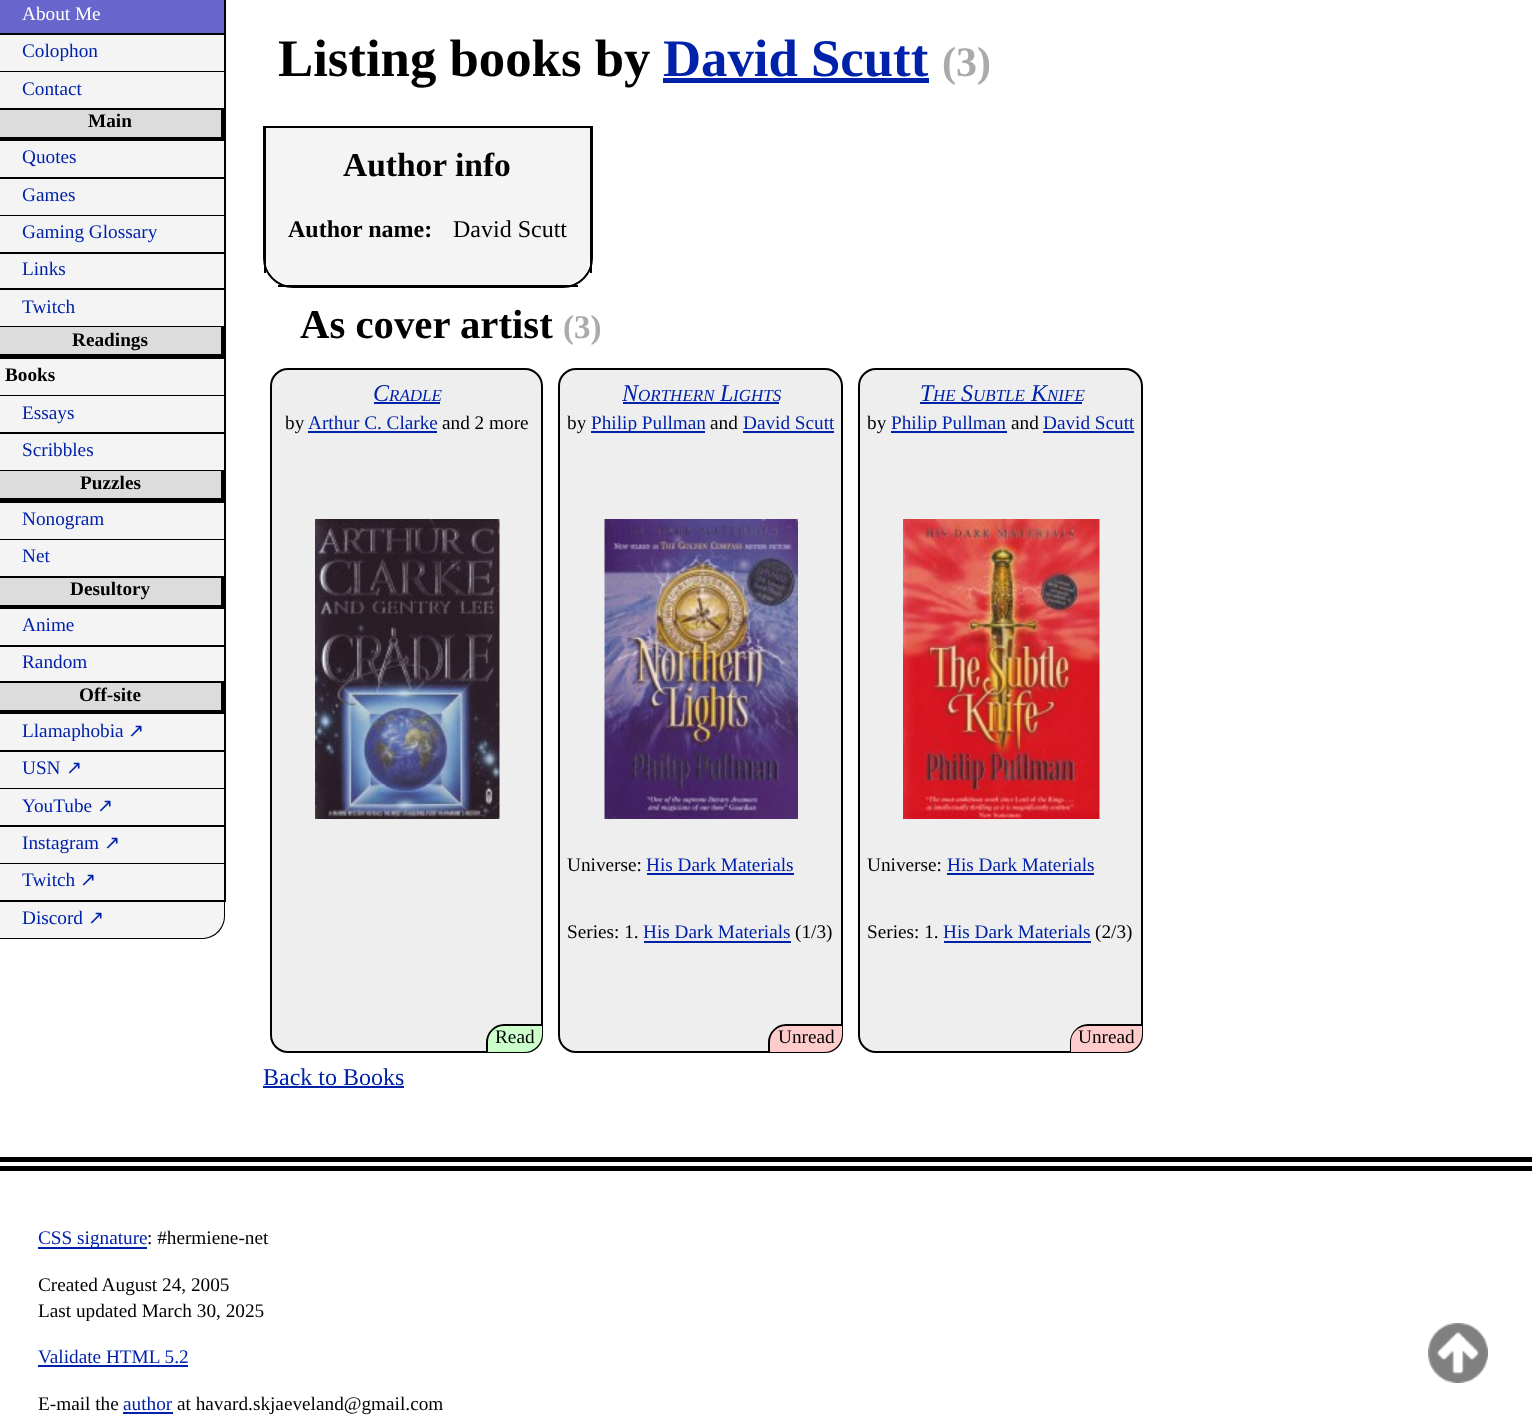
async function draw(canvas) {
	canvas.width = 1532;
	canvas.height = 1427;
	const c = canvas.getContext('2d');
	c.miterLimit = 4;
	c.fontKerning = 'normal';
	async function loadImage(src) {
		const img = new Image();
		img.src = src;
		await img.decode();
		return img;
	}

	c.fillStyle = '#fff';
	c.fillRect(0, 0, 1532, 1427);
	for (const [x, y, w, h, color] of [
		[224, 0, 2, 110, '#000'],
		[0, 33, 225, 2, '#000'],
		[0, 0, 224, 33, '#66c'],
	]) {
		c.fillStyle = color;
		c.fillRect(x, y, w, h);
	}
	c.font = '19.25px Liberation Serif';
	c.fillStyle = '#fff';
	c.fillText('About Me', 22, 20);
	c.fillStyle = '#f4f4f4';
	c.fillRect(0, 35, 224, 36);
	c.fillStyle = '#000';
	c.fillRect(0, 71, 225, 1);
	c.fillStyle = '#02a';
	c.fillText('Colophon', 22, 57);
	c.fillStyle = '#f4f4f4';
	c.fillRect(0, 72, 224, 36);
	c.fillStyle = '#000';
	c.fillRect(0, 108, 225, 2);
	c.fillStyle = '#02a';
	c.fillText('Contact', 22, 95);
	for (const [x, y, w, h, color] of [
		[0, 110, 221, 27, '#dcdcdc'],
		[221, 110, 5, 31, '#000'],
		[0, 137, 225, 4, '#000'],
	]) {
		c.fillStyle = color;
		c.fillRect(x, y, w, h);
	}
	c.font = 'bold 19.25px Liberation Serif';
	c.fillText('Main', 88, 127);
	for (const [x, y, w, h, color] of [
		[0, 141, 224, 36, '#f4f4f4'],
		[224, 141, 2, 186, '#000'],
		[0, 177, 225, 2, '#000'],
	]) {
		c.fillStyle = color;
		c.fillRect(x, y, w, h);
	}
	c.font = '19.25px Liberation Serif';
	c.fillStyle = '#02a';
	c.fillText('Quotes', 22, 163);
	c.fillStyle = '#f4f4f4';
	c.fillRect(0, 179, 224, 36);
	c.fillStyle = '#000';
	c.fillRect(0, 215, 225, 1);
	c.fillStyle = '#02a';
	c.fillText('Games', 22, 201);
	c.fillStyle = '#f4f4f4';
	c.fillRect(0, 216, 224, 36);
	c.fillStyle = '#000';
	c.fillRect(0, 252, 225, 2);
	c.fillStyle = '#02a';
	c.fillText('Gaming Glossary', 22, 238);
	c.fillStyle = '#f4f4f4';
	c.fillRect(0, 254, 224, 34);
	c.fillStyle = '#000';
	c.fillRect(0, 288, 225, 2);
	c.fillStyle = '#02a';
	c.fillText('Links', 22, 275);
	c.fillStyle = '#f4f4f4';
	c.fillRect(0, 290, 224, 36);
	c.fillStyle = '#000';
	c.fillRect(0, 326, 225, 1);
	c.fillStyle = '#02a';
	c.fillText('Twitch', 22, 313);
	for (const [x, y, w, h, color] of [
		[0, 327, 221, 27, '#dcdcdc'],
		[221, 327, 5, 32, '#000'],
		[0, 354, 225, 5, '#000'],
	]) {
		c.fillStyle = color;
		c.fillRect(x, y, w, h);
	}
	c.font = 'bold 19.25px Liberation Serif';
	c.fillText('Readings', 72, 346);
	for (const [x, y, w, h, color] of [
		[0, 359, 224, 36, '#f4f4f4'],
		[224, 359, 2, 112, '#000'],
		[0, 395, 225, 1, '#000'],
	]) {
		c.fillStyle = color;
		c.fillRect(x, y, w, h);
	}
	c.fillText('Books', 5, 381);
	c.fillStyle = '#f4f4f4';
	c.fillRect(0, 396, 224, 36);
	c.fillStyle = '#000';
	c.fillRect(0, 432, 225, 2);
	c.font = '19.25px Liberation Serif';
	c.fillStyle = '#02a';
	c.fillText('Essays', 22, 419);
	c.fillStyle = '#f4f4f4';
	c.fillRect(0, 434, 224, 36);
	c.fillStyle = '#000';
	c.fillRect(0, 470, 225, 1);
	c.fillStyle = '#02a';
	c.fillText('Scribbles', 22, 456);
	for (const [x, y, w, h, color] of [
		[0, 471, 221, 27, '#dcdcdc'],
		[221, 471, 5, 32, '#000'],
		[0, 498, 225, 5, '#000'],
	]) {
		c.fillStyle = color;
		c.fillRect(x, y, w, h);
	}
	c.font = 'bold 19.25px Liberation Serif';
	c.fillText('Puzzles', 80, 489);
	for (const [x, y, w, h, color] of [
		[0, 503, 224, 36, '#f4f4f4'],
		[224, 503, 2, 75, '#000'],
		[0, 539, 225, 1, '#000'],
	]) {
		c.fillStyle = color;
		c.fillRect(x, y, w, h);
	}
	c.font = '19.25px Liberation Serif';
	c.fillStyle = '#02a';
	c.fillText('Nonogram', 22, 525);
	c.fillStyle = '#f4f4f4';
	c.fillRect(0, 540, 224, 36);
	c.fillStyle = '#000';
	c.fillRect(0, 576, 225, 2);
	c.fillStyle = '#02a';
	c.fillText('Net', 22, 562);
	for (const [x, y, w, h, color] of [
		[0, 578, 221, 27, '#dcdcdc'],
		[221, 578, 5, 31, '#000'],
		[0, 605, 225, 4, '#000'],
	]) {
		c.fillStyle = color;
		c.fillRect(x, y, w, h);
	}
	c.font = 'bold 19.25px Liberation Serif';
	c.fillText('Desultory', 70, 595);
	for (const [x, y, w, h, color] of [
		[0, 609, 224, 36, '#f4f4f4'],
		[224, 609, 2, 74, '#000'],
		[0, 645, 225, 2, '#000'],
	]) {
		c.fillStyle = color;
		c.fillRect(x, y, w, h);
	}
	c.font = '19.25px Liberation Serif';
	c.fillStyle = '#02a';
	c.fillText('Anime', 22, 631);
	c.fillStyle = '#f4f4f4';
	c.fillRect(0, 647, 224, 34);
	c.fillStyle = '#000';
	c.fillRect(0, 681, 225, 2);
	c.fillStyle = '#02a';
	c.fillText('Random', 22, 668);
	for (const [x, y, w, h, color] of [
		[0, 683, 221, 27, '#dcdcdc'],
		[221, 683, 5, 31, '#000'],
		[0, 710, 225, 4, '#000'],
	]) {
		c.fillStyle = color;
		c.fillRect(x, y, w, h);
	}
	c.font = 'bold 19.25px Liberation Serif';
	c.fillText('Off-site', 79, 701);
	for (const [x, y, w, h, color] of [
		[0, 714, 224, 36, '#f4f4f4'],
		[224, 714, 2, 188, '#000'],
		[0, 750, 225, 2, '#000'],
	]) {
		c.fillStyle = color;
		c.fillRect(x, y, w, h);
	}
	c.font = '19.25px Liberation Serif';
	c.fillStyle = '#02a';
	c.fillText('Llamaphobia', 22, 737);
	c.font = '19.25px DejaVu Sans';
	c.fillText('↗', 128, 737);
	c.fillStyle = '#f4f4f4';
	c.fillRect(0, 752, 224, 36);
	c.fillStyle = '#000';
	c.fillRect(0, 788, 225, 1);
	c.font = '19.25px Liberation Serif';
	c.fillStyle = '#02a';
	c.fillText('USN', 22, 774);
	c.font = '19.25px DejaVu Sans';
	c.fillText('↗', 66, 774);
	c.fillStyle = '#f4f4f4';
	c.fillRect(0, 789, 224, 36);
	c.fillStyle = '#000';
	c.fillRect(0, 825, 225, 2);
	c.font = '19.25px Liberation Serif';
	c.fillStyle = '#02a';
	c.fillText('YouTube', 22, 812);
	c.font = '19.25px DejaVu Sans';
	c.fillText('↗', 97, 812);
	c.fillStyle = '#f4f4f4';
	c.fillRect(0, 827, 224, 36);
	c.fillStyle = '#000';
	c.fillRect(0, 863, 225, 1);
	c.font = '19.25px Liberation Serif';
	c.fillStyle = '#02a';
	c.fillText('Instagram', 22, 849);
	c.font = '19.25px DejaVu Sans';
	c.fillText('↗', 104, 849);
	c.fillStyle = '#f4f4f4';
	c.fillRect(0, 864, 224, 36);
	c.fillStyle = '#000';
	c.fillRect(0, 900, 225, 2);
	c.font = '19.25px Liberation Serif';
	c.fillStyle = '#02a';
	c.fillText('Twitch', 22, 886);
	c.font = '19.25px DejaVu Sans';
	c.fillText('↗', 80, 886);
	c.fillStyle = '#f4f4f4';
	c.beginPath();
	c.roundRect(0, 902, 225, 37, [0, 0, 23, 0]);
	c.fill();
	c.fillStyle = '#000';
	c.beginPath();
	c.moveTo(0, 902);
	c.lineTo(225, 902);
	c.lineTo(225, 916);
	c.bezierCurveTo(225, 929, 215, 939, 202, 939);
	c.lineTo(0, 939);
	c.closePath();
	c.moveTo(0, 902);
	c.lineTo(224, 902);
	c.lineTo(224, 916);
	c.bezierCurveTo(224, 928, 214, 938, 202, 938);
	c.lineTo(0, 938);
	c.closePath();
	c.fill('evenodd');
	c.font = '19.25px Liberation Serif';
	c.fillStyle = '#02a';
	c.fillText('Discord', 22, 924);
	c.font = '19.25px DejaVu Sans';
	c.fillText('↗', 88, 924);
	c.font = 'bold 52.75px Liberation Serif';
	c.fillStyle = '#000';
	c.fillText('Listing books by', 278, 76);
	c.fillStyle = '#02a';
	c.fillText('David Scutt', 663, 76);
	c.fillRect(663, 78, 266, 5);
	c.font = 'bold 42px Liberation Serif';
	c.fillStyle = '#aaa';
	c.fillText('(3)', 942, 76);
	c.fillStyle = '#f4f4f4';
	c.beginPath();
	c.roundRect(266, 128, 324, 157, [0, 0, 27, 27]);
	c.fill();
	c.beginPath();
	c.roundRect(264, 127, 328, 160, [0, 0, 29, 29]);
	c.strokeStyle = '#000';
	c.lineWidth = 2;
	c.stroke();
	for (const [x, y, w, h, color] of [
		[590, 126, 2, 147, '#000'],
		[278, 285, 300, 2, '#000'],
		[264, 126, 2, 147, '#000'],
	]) {
		c.fillStyle = color;
		c.fillRect(x, y, w, h);
	}
	c.font = 'bold 33.5px Liberation Serif';
	c.fillText('Author info', 343, 176);
	c.font = 'bold 24px Liberation Serif';
	c.fillText('Author name:', 288, 237);
	c.font = '24px Liberation Serif';
	c.fillText('David Scutt', 453, 237);
	c.font = 'bold 40.75px Liberation Serif';
	c.fillText('As cover artist', 300, 338);
	c.font = 'bold 33px Liberation Serif';
	c.fillStyle = '#aaa';
	c.fillText('(3)', 563, 338);
	c.fillStyle = '#eee';
	c.beginPath();
	c.roundRect(271, 369, 271, 683, 17);
	c.fill();
	c.stroke();
	c.font = 'italic 24px Liberation Serif';
	c.fillStyle = '#02a';
	c.fillText('C', 373, 401);
	c.font = 'italic 17px Liberation Serif';
	c.fillText('RADLE', 389, 401);
	c.fillRect(374, 402, 66, 2);
	c.font = '19.25px Liberation Serif';
	c.fillStyle = '#000';
	c.fillText('by', 285, 429);
	c.fillStyle = '#02a';
	c.fillText('Arthur C. Clarke', 308, 429);
	c.fillRect(308, 431, 129, 2);
	c.fillStyle = '#000';
	c.fillText('and 2 more', 442, 429);
	c.drawImage(await loadImage('img1.png'), 315, 519, 185, 300);
	c.fillStyle = '#cfc';
	c.beginPath();
	c.roundRect(486, 1025, 56, 27, [18, 0, 18, 0]);
	c.fill();
	c.fillStyle = '#000';
	c.beginPath();
	c.moveTo(504, 1024);
	c.lineTo(542, 1024);
	c.lineTo(542, 1034);
	c.bezierCurveTo(542, 1043, 533, 1052, 524, 1052);
	c.lineTo(486, 1052);
	c.lineTo(486, 1042);
	c.bezierCurveTo(486, 1033, 494, 1024, 504, 1024);
	c.closePath();
	c.moveTo(504, 1026);
	c.lineTo(542, 1026);
	c.lineTo(542, 1034);
	c.bezierCurveTo(542, 1043, 533, 1052, 524, 1052);
	c.lineTo(488, 1052);
	c.lineTo(488, 1042);
	c.bezierCurveTo(488, 1033, 495, 1026, 504, 1026);
	c.closePath();
	c.fill('evenodd');
	c.fillText('Read', 495, 1043);
	c.fillStyle = '#eee';
	c.beginPath();
	c.roundRect(559, 369, 283, 683, 17);
	c.fill();
	c.stroke();
	c.font = 'italic 24px Liberation Serif';
	c.fillStyle = '#02a';
	c.fillText('N', 622, 401);
	c.font = 'italic 17px Liberation Serif';
	c.fillText('ORTHERN', 638, 401);
	c.fillRect(623, 402, 156, 2);
	c.font = 'italic 24px Liberation Serif';
	c.fillText('L', 720, 401);
	c.font = 'italic 17px Liberation Serif';
	c.fillText('IGHTS', 733, 401);
	c.font = '19.25px Liberation Serif';
	c.fillStyle = '#000';
	c.fillText('by', 567, 429);
	c.fillStyle = '#02a';
	c.fillRect(591, 431, 114, 2);
	c.fillText('Philip Pullman', 591, 429);
	c.fillStyle = '#000';
	c.fillText('and', 710, 429);
	c.fillStyle = '#02a';
	c.fillText('David Scutt', 743, 429);
	c.fillRect(743, 431, 91, 2);
	c.drawImage(await loadImage('img2.png'), 604, 519, 194, 300);
	c.fillStyle = '#000';
	c.fillText('Universe:', 567, 871);
	c.fillStyle = '#02a';
	c.fillText('His Dark Materials', 646, 871);
	c.fillRect(647, 873, 147, 2);
	c.fillStyle = '#000';
	c.fillText('Series: 1.', 567, 938);
	c.fillStyle = '#02a';
	c.fillText('His Dark Materials', 643, 938);
	c.fillRect(644, 941, 147, 2);
	c.fillStyle = '#000';
	c.fillText('(1/3)', 795, 938);
	c.fillStyle = '#fcc';
	c.beginPath();
	c.roundRect(768, 1025, 74, 27, [18, 0, 18, 0]);
	c.fill();
	c.fillStyle = '#000';
	c.beginPath();
	c.moveTo(786, 1024);
	c.lineTo(842, 1024);
	c.lineTo(842, 1034);
	c.bezierCurveTo(842, 1043, 833, 1052, 824, 1052);
	c.lineTo(768, 1052);
	c.lineTo(768, 1042);
	c.bezierCurveTo(768, 1033, 776, 1024, 786, 1024);
	c.closePath();
	c.moveTo(786, 1026);
	c.lineTo(842, 1026);
	c.lineTo(842, 1034);
	c.bezierCurveTo(842, 1043, 833, 1052, 824, 1052);
	c.lineTo(770, 1052);
	c.lineTo(770, 1042);
	c.bezierCurveTo(770, 1033, 777, 1026, 786, 1026);
	c.closePath();
	c.fill('evenodd');
	c.fillText('Unread', 778, 1043);
	c.fillStyle = '#eee';
	c.beginPath();
	c.roundRect(859, 369, 283, 683, 17);
	c.fill();
	c.stroke();
	c.font = 'italic 24px Liberation Serif';
	c.fillStyle = '#02a';
	c.fillText('T', 920, 401);
	c.font = 'italic 17px Liberation Serif';
	c.fillText('HE', 933, 401);
	c.font = 'italic 24px Liberation Serif';
	c.fillText('S', 961, 401);
	c.font = 'italic 17px Liberation Serif';
	c.fillText('UBTLE', 973, 401);
	c.fillRect(920, 402, 162, 2);
	c.font = 'italic 24px Liberation Serif';
	c.fillText('K', 1031, 401);
	c.font = 'italic 17px Liberation Serif';
	c.fillText('NIFE', 1047, 401);
	c.font = '19.25px Liberation Serif';
	c.fillStyle = '#000';
	c.fillText('by', 867, 429);
	c.fillStyle = '#02a';
	c.fillRect(891, 431, 116, 2);
	c.fillText('Philip Pullman', 891, 429);
	c.fillStyle = '#000';
	c.fillText('and', 1011, 429);
	c.fillStyle = '#02a';
	c.fillText('David Scutt', 1043, 429);
	c.fillRect(1043, 431, 91, 2);
	c.drawImage(await loadImage('img3.png'), 903, 519, 197, 300);
	c.fillStyle = '#000';
	c.fillText('Universe:', 867, 871);
	c.fillStyle = '#02a';
	c.fillText('His Dark Materials', 947, 871);
	c.fillRect(947, 873, 147, 2);
	c.fillStyle = '#000';
	c.fillText('Series: 1.', 867, 938);
	c.fillStyle = '#02a';
	c.fillText('His Dark Materials', 943, 938);
	c.fillRect(944, 941, 147, 2);
	c.fillStyle = '#000';
	c.fillText('(2/3)', 1095, 938);
	c.fillStyle = '#fcc';
	c.beginPath();
	c.roundRect(1070, 1025, 72, 27, [18, 0, 18, 0]);
	c.fill();
	c.fillStyle = '#000';
	c.beginPath();
	c.moveTo(1088, 1024);
	c.lineTo(1142, 1024);
	c.lineTo(1142, 1034);
	c.bezierCurveTo(1142, 1043, 1133, 1052, 1124, 1052);
	c.lineTo(1070, 1052);
	c.lineTo(1070, 1042);
	c.bezierCurveTo(1070, 1033, 1078, 1024, 1088, 1024);
	c.closePath();
	c.moveTo(1088, 1026);
	c.lineTo(1142, 1026);
	c.lineTo(1142, 1034);
	c.bezierCurveTo(1142, 1043, 1133, 1052, 1124, 1052);
	c.lineTo(1071, 1052);
	c.lineTo(1071, 1042);
	c.bezierCurveTo(1071, 1033, 1078, 1026, 1088, 1026);
	c.closePath();
	c.fill('evenodd');
	c.fillText('Unread', 1078, 1043);
	c.font = '24px Liberation Serif';
	c.fillStyle = '#02a';
	c.fillText('Back to Books', 263, 1085);
	for (const [x, y, w, h, color] of [
		[263, 1086, 141, 2, '#02a'],
		[0, 1157, 1532, 5, '#000'],
		[0, 1166, 1532, 5, '#000'],
		[38, 1247, 109, 2, '#02a'],
	]) {
		c.fillStyle = color;
		c.fillRect(x, y, w, h);
	}
	c.font = '19.25px Liberation Serif';
	c.fillText('CSS signature', 38, 1244);
	c.fillStyle = '#000';
	for (const [text, x, y] of [
		[': #hermiene-net', 147, 1244],
		['Created August 24, 2005', 38, 1291],
		['Last updated March 30, 2025', 38, 1317],
	]) {
		c.fillText(text, x, y);
	}
	c.fillStyle = '#02a';
	c.fillText('Validate HTML 5.2', 38, 1363);
	c.fillRect(38, 1365, 150, 2);
	c.fillStyle = '#000';
	c.fillText('E-mail the', 38, 1410);
	c.fillStyle = '#02a';
	c.fillText('author', 123, 1410);
	c.fillRect(123, 1412, 50, 2);
	c.fillStyle = '#000';
	c.fillText('at havard.skjaeveland@gmail.com', 177, 1410);
	c.drawImage(await loadImage('img4.png'), 1428, 1323, 60, 60);
}

draw(document.querySelector('canvas'));
